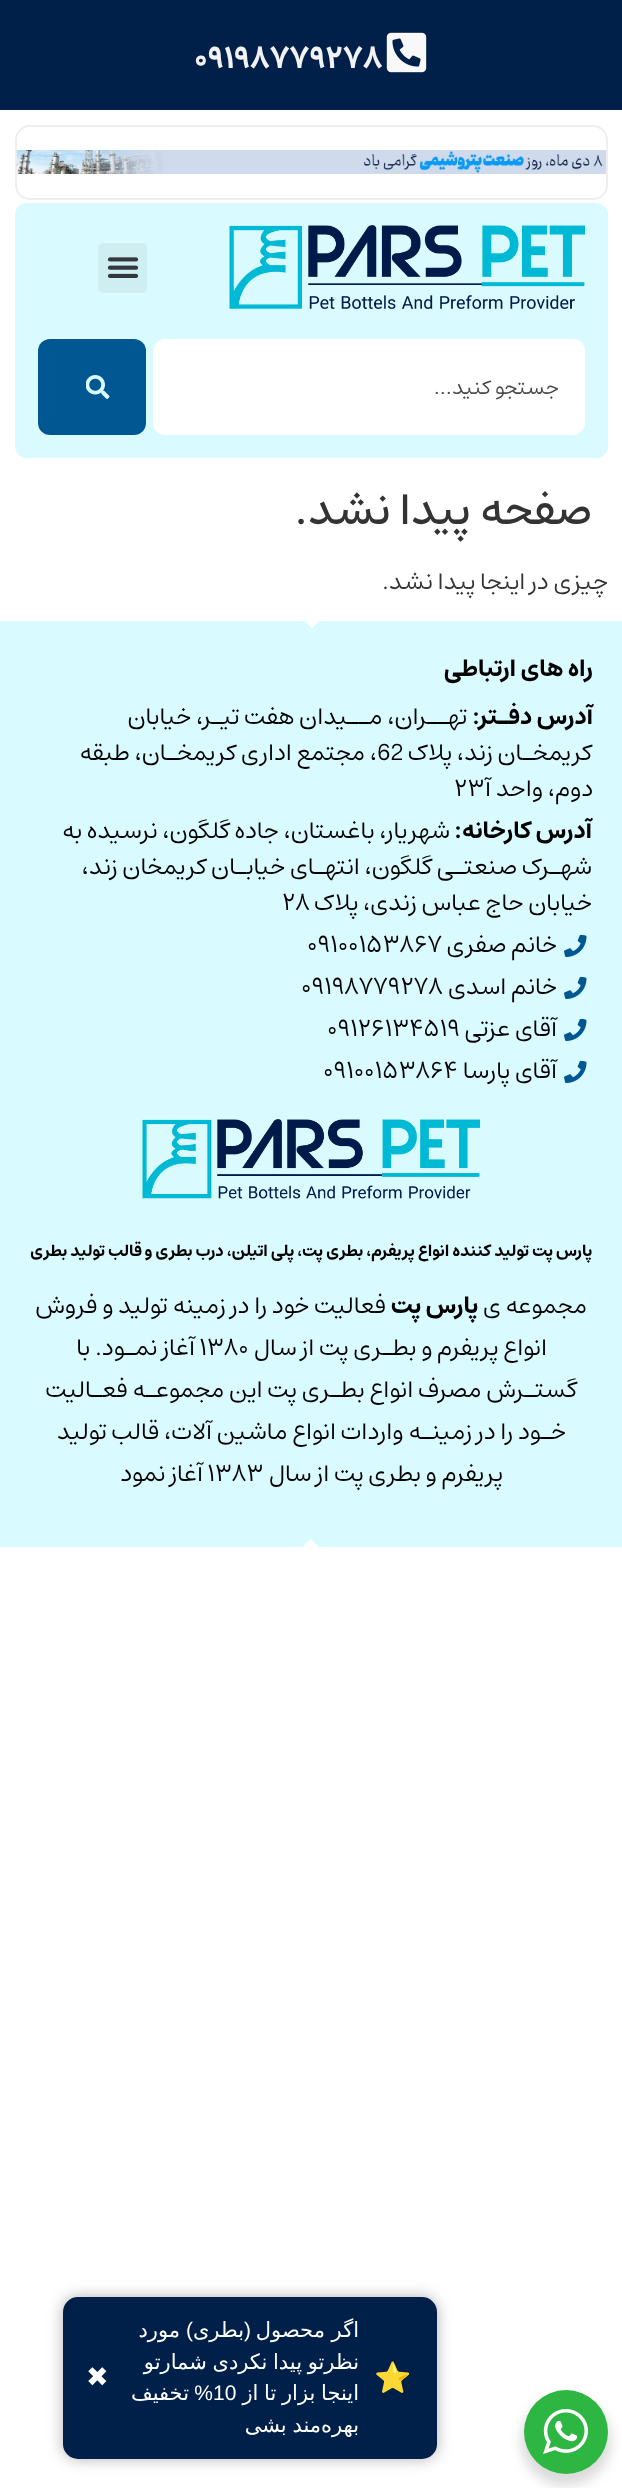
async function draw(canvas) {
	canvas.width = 622;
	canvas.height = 2488;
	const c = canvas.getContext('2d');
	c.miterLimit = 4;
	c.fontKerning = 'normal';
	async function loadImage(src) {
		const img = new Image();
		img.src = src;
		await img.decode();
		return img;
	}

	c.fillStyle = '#fff';
	c.fillRect(0, 0, 622, 2488);
	c.fillStyle = '#002049';
	c.fillRect(0, 0, 622, 110);
	c.drawImage(await loadImage('img1.png'), 386, 32, 41, 41);
	c.font = 'bold 30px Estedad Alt';
	c.fillStyle = '#f2f2f3';
	c.fillText('09198779278', 194, 68);
	c.beginPath();
	c.roundRect(16, 126, 591, 73, 14);
	c.strokeStyle = '#efeeee';
	c.lineWidth = 2;
	c.stroke();
	c.drawImage(await loadImage('img2.png'), 16, 150, 590, 24);
	c.fillStyle = '#d9faff';
	c.beginPath();
	c.roundRect(15, 203, 593, 255, 12);
	c.fill();
	c.drawImage(await loadImage('img3.png'), 229, 225, 356, 84);
	c.fillStyle = '#ceeef2';
	c.beginPath();
	c.roundRect(98, 243, 49, 50, 5);
	c.fill();
	c.drawImage(await loadImage('img4.png'), 107, 257, 32, 21);
	c.fillStyle = '#fff';
	c.beginPath();
	c.roundRect(154, 340, 430, 94, 11);
	c.fill();
	c.strokeStyle = '#fff';
	c.stroke();
	c.direction = 'rtl';
	c.font = '21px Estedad';
	c.fillStyle = '#474747';
	c.fillText('جستجو کنید...', 559, 394);
	c.fillStyle = '#005792';
	c.beginPath();
	c.roundRect(38, 339, 108, 96, 12);
	c.fill();
	c.drawImage(await loadImage('img5.png'), 86, 375, 24, 24);
	c.font = '500 45px Estedad';
	c.fillStyle = '#333';
	c.fillText('صفحه پیدا نشد.', 592, 524);
	c.font = '24px Estedad';
	c.fillText('چیزی در اینجا پیدا نشد.', 608, 589);
	c.fillStyle = '#d9faff';
	c.fillRect(0, 621, 622, 926);
	c.save();
	c.beginPath();
	c.rect(0, 620, 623, 9);
	c.clip();
	c.fillStyle = '#fff';
	c.beginPath();
	c.moveTo(312, 628.5);
	c.lineTo(303, 619.5);
	c.lineTo(321, 619.5);
	c.closePath();
	c.fill();
	c.restore();
	c.font = 'bold 24px Estedad';
	c.fillStyle = '#000';
	c.fillText('راه های ارتباطی', 593, 676);
	c.fillText('آدرس دفـتر:', 593, 724);
	c.font = '24px Estedad';
	c.fillText('تهــران، مــیدان هفت تیـر، خیابان', 467, 724);
	c.fillText('کریمخـان زند، پلاک', 592, 760);
	c.direction = 'ltr';
	c.fillText('62', 377, 760);
	c.direction = 'rtl';
	c.fillText('، مجتمع اداری کریمخـان، طبقه', 377, 760);
	c.direction = 'ltr';
	c.font = '24px Estedad Alt';
	c.fillText('23', 454, 796);
	c.direction = 'rtl';
	c.font = '24px Estedad';
	c.fillText('دوم، واحد آ', 593, 796);
	c.font = 'bold 24px Estedad';
	c.fillText('آدرس کارخانه:', 592, 838);
	c.font = '24px Estedad';
	for (const [text, x, y] of [
		['شهریار، باغستان، جاده گلگون، نرسیده به', 450, 838],
		['شهـرک صنعتـی گلگون، انتهـای خیابـان کریمخان زند،', 592, 874],
		['خیابان حاج عباس زندی، پلاک', 592, 910],
	]) {
		c.fillText(text, x, y);
	}
	c.direction = 'ltr';
	c.font = '24px Estedad Alt';
	c.fillText('28', 282, 910);
	c.drawImage(await loadImage('img6.png'), 564, 935, 23, 22);
	c.direction = 'rtl';
	c.font = '24px Estedad';
	c.fillText('خانم صفری', 557, 952);
	c.direction = 'ltr';
	c.font = '24px Estedad Alt';
	c.fillText('09100153867', 307, 952);
	c.drawImage(await loadImage('img6.png'), 564, 977, 23, 22);
	c.direction = 'rtl';
	c.font = '24px Estedad';
	c.fillText('خانم اسدی', 557, 994);
	c.direction = 'ltr';
	c.font = '24px Estedad Alt';
	c.fillText('09198779278', 301, 994);
	c.drawImage(await loadImage('img6.png'), 564, 1019, 23, 22);
	c.direction = 'rtl';
	c.font = '24px Estedad';
	c.fillText('آقای عزتی', 557, 1036);
	c.direction = 'ltr';
	c.font = '24px Estedad Alt';
	c.fillText('09126134519', 327, 1036);
	c.drawImage(await loadImage('img6.png'), 564, 1061, 23, 22);
	c.direction = 'rtl';
	c.font = '24px Estedad';
	c.fillText('آقای پارسا', 557, 1078);
	c.direction = 'ltr';
	c.font = '24px Estedad Alt';
	c.fillText('09100153864', 323, 1078);
	c.drawImage(await loadImage('img7.png'), 142, 1119, 338, 80);
	c.direction = 'rtl';
	c.font = 'bold 16.5px Estedad';
	c.fillText('پارس پت تولید کننده انواع پریفرم، بطری پت، پلی اتیلن، درب بطری و', 592, 1256);
	c.fillText('قالب تولید بطری', 142, 1256);
	c.font = '24px Estedad';
	c.fillText('مجموعه ی', 587, 1313);
	c.font = 'bold 24px Estedad';
	c.fillText('پارس پت', 478, 1313);
	c.font = '24px Estedad';
	c.fillText('فعالیت خود را در زمینه تولید و فروش', 386, 1313);
	c.fillText('انواع پریفرم و بطـری پت از سال', 547, 1355);
	c.direction = 'ltr';
	c.fillText('۱۳۸۰', 199, 1355);
	c.direction = 'rtl';
	for (const [text, x, y] of [
		['آغاز نمـود. با', 195, 1355],
		['گستـرش مصرف انواع بطـری پت این مجموعـه فعـالیت', 577, 1397],
		['خـود را در زمینـه واردات انواع ماشین آلات، قالب تولید', 566, 1439],
		['پریفرم و بطری پت از سال', 503, 1481],
	]) {
		c.fillText(text, x, y);
	}
	c.direction = 'ltr';
	c.fillText('۱۳۸۳', 207, 1481);
	c.direction = 'rtl';
	c.fillText('آغاز نمود', 203, 1481);
	c.fillStyle = '#fff';
	c.beginPath();
	c.moveTo(310.5, 1539);
	c.lineTo(319.5, 1548);
	c.lineTo(301.5, 1548);
	c.closePath();
	c.fill();
	c.fillStyle = '#00000024';
	c.filter = 'blur(6px)';
	c.beginPath();
	c.roundRect(521, 2396, 90, 90, 45);
	c.fill();
	c.filter = 'none';
	c.fillStyle = '#2db742';
	c.beginPath();
	c.arc(566, 2432, 42, 0, 2 * Math.PI);
	c.fill();
	c.drawImage(await loadImage('img8.png'), 543, 2409, 45, 45);
	c.fillStyle = '#0000004d';
	c.filter = 'blur(7.5px)';
	c.beginPath();
	c.roundRect(63, 2297, 374, 162, 15);
	c.fill();
	c.filter = 'none';
	c.fillStyle = '#00204a';
	c.beginPath();
	c.roundRect(63, 2297, 374, 162, 15);
	c.fill();
	c.direction = 'ltr';
	c.font = '30px Noto Color Emoji';
	c.fillStyle = '#fff';
	c.fillText('⭐', 374, 2388);
	c.direction = 'rtl';
	c.font = '21px DejaVu Sans';
	c.fillText('اگر محصول', 359, 2337);
	c.font = '21px Liberation Sans';
	c.fillText('(', 251, 2337);
	c.font = '21px DejaVu Sans';
	c.fillText('بطری', 244, 2337);
	c.font = '21px Liberation Sans';
	c.fillText(')', 193, 2337);
	c.font = '21px DejaVu Sans';
	c.fillText('مورد', 180, 2337);
	c.wordSpacing = '-1px';
	c.fillText('نظرتو پیدا نکردی شمارتو', 359, 2369);
	c.fillText('اینجا بزار تا از', 359, 2400);
	c.wordSpacing = '0px';
	c.direction = 'ltr';
	c.font = '21px Liberation Sans';
	c.fillText('10', 213, 2400);
	c.direction = 'rtl';
	c.fillText('%', 213, 2400);
	c.font = '21px DejaVu Sans';
	c.fillText('تخفیف', 189, 2400);
	c.fillText('بهره', 359, 2432);
	c.wordSpacing = '-1px';
	c.fillText('مند بشی', 321, 2432);
	c.wordSpacing = '0px';
	c.direction = 'ltr';
	c.font = '27px DejaVu Sans';
	c.fillText('✖', 86, 2386);
}

draw(document.querySelector('canvas'));
